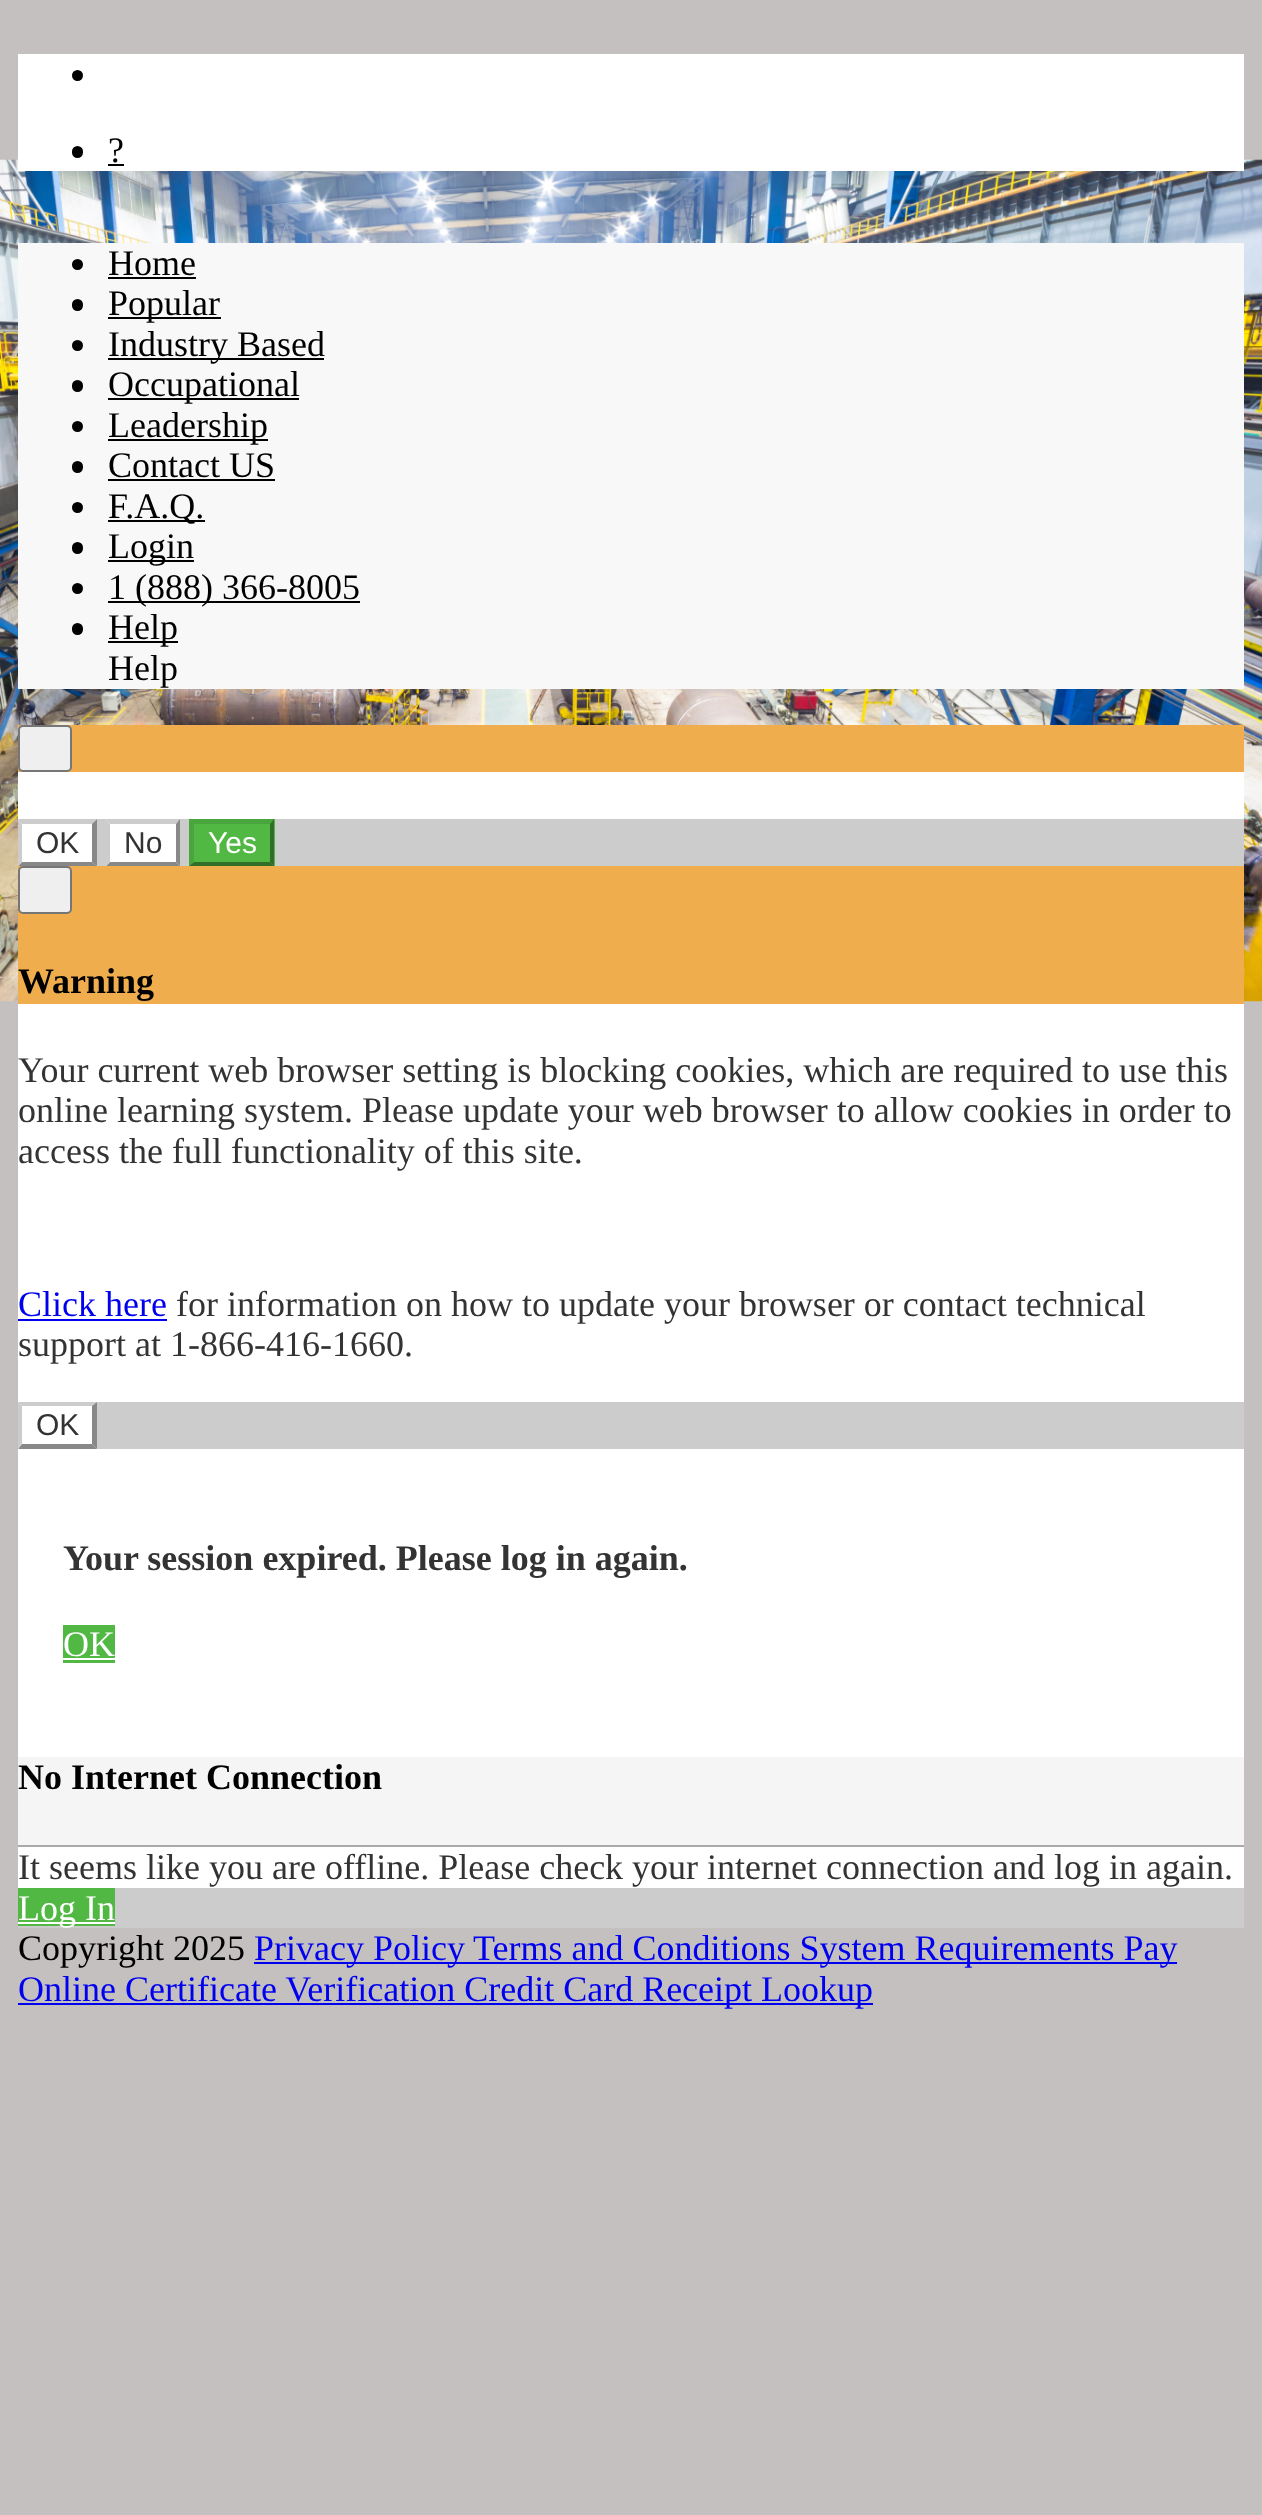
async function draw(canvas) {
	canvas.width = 1262;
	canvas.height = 2515;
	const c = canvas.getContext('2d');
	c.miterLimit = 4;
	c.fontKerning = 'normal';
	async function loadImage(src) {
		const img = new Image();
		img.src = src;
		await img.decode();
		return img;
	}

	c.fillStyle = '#c4c0c0';
	c.fillRect(0, 0, 1262, 2515);
	c.drawImage(await loadImage('img1.png'), 0, 159, 1262, 843);
	c.fillStyle = '#fff';
	c.fillRect(18, 54, 1226, 117);
	c.fillStyle = '#000';
	c.beginPath();
	c.arc(77.5, 75.5, 5.5, 0, 2 * Math.PI);
	c.fill();
	c.beginPath();
	c.roundRect(72, 146, 11, 12, 5.5);
	c.fill();
	c.font = '36px Liberation Serif';
	c.fillText('?', 108, 162);
	c.fillRect(108, 164, 16, 2);
	c.fillStyle = '#f8f8f8';
	c.fillRect(18, 243, 1226, 446);
	c.fillStyle = '#000';
	c.beginPath();
	c.arc(77.5, 264.5, 5.5, 0, 2 * Math.PI);
	c.fill();
	c.fillText('Home', 108, 275);
	c.fillRect(108, 277, 88, 2);
	c.beginPath();
	c.roundRect(72, 299, 11, 12, 5.5);
	c.fill();
	c.fillRect(108, 317, 113, 2);
	c.fillText('Popular', 108, 315);
	c.beginPath();
	c.arc(77.5, 345.5, 5.5, 0, 2 * Math.PI);
	c.fill();
	c.fillRect(108, 358, 216, 2);
	c.fillText('Industry Based', 108, 356);
	c.beginPath();
	c.roundRect(72, 380, 11, 12, 5.5);
	c.fill();
	c.fillRect(108, 398, 191, 2);
	c.fillText('Occupational', 108, 396);
	c.beginPath();
	c.arc(77.5, 426.5, 5.5, 0, 2 * Math.PI);
	c.fill();
	c.fillRect(108, 439, 160, 2);
	c.fillText('Leadership', 108, 437);
	c.beginPath();
	c.roundRect(72, 461, 11, 12, 5.5);
	c.fill();
	c.fillText('Contact US', 108, 477);
	c.fillRect(108, 479, 167, 2);
	c.beginPath();
	c.arc(77.5, 507.5, 5.5, 0, 2 * Math.PI);
	c.fill();
	c.fillRect(108, 520, 97, 2);
	c.fillText('F.A.Q.', 108, 518);
	c.beginPath();
	c.roundRect(72, 542, 11, 12, 5.5);
	c.fill();
	c.fillRect(108, 560, 86, 2);
	c.fillText('Login', 108, 558);
	c.beginPath();
	c.arc(77.5, 588.5, 5.5, 0, 2 * Math.PI);
	c.fill();
	c.fillRect(108, 601, 252, 2);
	c.fillText('1 (888) 366-8005', 108, 599);
	c.beginPath();
	c.roundRect(72, 623, 11, 12, 5.5);
	c.fill();
	c.fillRect(108, 641, 70, 2);
	c.fillText('Help', 108, 639);
	c.fillText('Help', 108, 680);
	c.fillStyle = '#fff';
	c.fillRect(18, 772, 1226, 47);
	c.fillStyle = '#f0ad4e';
	c.fillRect(18, 725, 1226, 47);
	c.fillStyle = '#efefef';
	c.beginPath();
	c.roundRect(19, 726, 52, 45, 4);
	c.fill();
	c.strokeStyle = '#767676';
	c.lineWidth = 2;
	c.stroke();
	c.fillStyle = '#ccc';
	c.fillRect(97, 819, 1147, 47);
	c.fillStyle = '#fff';
	c.fillRect(18, 819, 79, 47);
	c.fillStyle = '#ccc';
	c.beginPath();
	c.moveTo(18, 819);
	c.lineTo(97, 819);
	c.lineTo(92, 824);
	c.lineTo(22, 824);
	c.closePath();
	c.fill();
	c.fillStyle = '#888';
	c.beginPath();
	c.moveTo(97, 819);
	c.lineTo(97, 866);
	c.lineTo(92, 862);
	c.lineTo(92, 824);
	c.closePath();
	c.fill();
	c.beginPath();
	c.moveTo(97, 866);
	c.lineTo(18, 866);
	c.lineTo(22, 862);
	c.lineTo(92, 862);
	c.closePath();
	c.fill();
	c.fillStyle = '#ccc';
	c.beginPath();
	c.moveTo(18, 866);
	c.lineTo(18, 819);
	c.lineTo(22, 824);
	c.lineTo(22, 862);
	c.closePath();
	c.fill();
	c.font = '30px Liberation Sans';
	c.fillStyle = '#333';
	c.fillText('OK', 36, 853);
	c.fillStyle = '#fff';
	c.fillRect(106, 819, 74, 47);
	c.fillStyle = '#ccc';
	c.beginPath();
	c.moveTo(106, 819);
	c.lineTo(180, 819);
	c.lineTo(176, 824);
	c.lineTo(110, 824);
	c.closePath();
	c.fill();
	c.fillStyle = '#888';
	c.beginPath();
	c.moveTo(180, 819);
	c.lineTo(180, 866);
	c.lineTo(176, 862);
	c.lineTo(176, 824);
	c.closePath();
	c.fill();
	c.beginPath();
	c.moveTo(180, 866);
	c.lineTo(106, 866);
	c.lineTo(110, 862);
	c.lineTo(176, 862);
	c.closePath();
	c.fill();
	c.fillStyle = '#ccc';
	c.beginPath();
	c.moveTo(106, 866);
	c.lineTo(106, 819);
	c.lineTo(110, 824);
	c.lineTo(110, 862);
	c.closePath();
	c.fill();
	c.fillStyle = '#333';
	c.fillText('No', 124, 853);
	c.fillStyle = '#51b943';
	c.fillRect(189, 819, 86, 47);
	c.fillStyle = '#49a63c';
	c.beginPath();
	c.moveTo(189, 819);
	c.lineTo(274, 819);
	c.lineTo(270, 824);
	c.lineTo(194, 824);
	c.closePath();
	c.fill();
	c.fillStyle = '#316f28';
	c.beginPath();
	c.moveTo(274, 819);
	c.lineTo(274, 866);
	c.lineTo(270, 862);
	c.lineTo(270, 824);
	c.closePath();
	c.fill();
	c.beginPath();
	c.moveTo(274, 866);
	c.lineTo(189, 866);
	c.lineTo(194, 862);
	c.lineTo(270, 862);
	c.closePath();
	c.fill();
	c.fillStyle = '#49a63c';
	c.beginPath();
	c.moveTo(189, 866);
	c.lineTo(189, 819);
	c.lineTo(194, 824);
	c.lineTo(194, 862);
	c.closePath();
	c.fill();
	c.fillStyle = '#fff';
	c.fillText('Yes', 208, 853);
	c.fillRect(18, 1004, 1226, 398);
	c.fillStyle = '#f0ad4e';
	c.fillRect(18, 866, 1226, 138);
	c.fillStyle = '#efefef';
	c.beginPath();
	c.roundRect(19, 867, 52, 46, 4);
	c.fill();
	c.stroke();
	c.font = 'bold 36px Liberation Serif';
	c.fillStyle = '#000';
	c.fillText('Warning', 18, 993);
	c.font = '36px Liberation Serif';
	c.fillStyle = '#333';
	for (const [text, x, y] of [
		['Your current web browser setting is blocking cookies, which are required to use this', 18, 1082],
		['online learning system. Please update your web browser to allow cookies in order to', 18, 1122],
		['access the full functionality of this site.', 18, 1163],
	]) {
		c.fillText(text, x, y);
	}
	c.fillStyle = '#00e';
	c.fillText('Click here', 18, 1316);
	c.fillRect(18, 1319, 149, 2);
	c.fillStyle = '#333';
	c.fillText('for information on how to update your browser or contact technical', 176, 1316);
	c.fillText('support at 1-866-416-1660.', 18, 1356);
	c.fillStyle = '#ccc';
	c.fillRect(97, 1402, 1147, 47);
	c.fillStyle = '#fff';
	c.fillRect(18, 1402, 79, 47);
	c.fillStyle = '#ccc';
	c.beginPath();
	c.moveTo(18, 1402);
	c.lineTo(97, 1402);
	c.lineTo(92, 1406);
	c.lineTo(22, 1406);
	c.closePath();
	c.fill();
	c.fillStyle = '#888';
	c.beginPath();
	c.moveTo(97, 1402);
	c.lineTo(97, 1449);
	c.lineTo(92, 1444);
	c.lineTo(92, 1406);
	c.closePath();
	c.fill();
	c.beginPath();
	c.moveTo(97, 1449);
	c.lineTo(18, 1449);
	c.lineTo(22, 1444);
	c.lineTo(92, 1444);
	c.closePath();
	c.fill();
	c.fillStyle = '#ccc';
	c.beginPath();
	c.moveTo(18, 1449);
	c.lineTo(18, 1402);
	c.lineTo(22, 1406);
	c.lineTo(22, 1444);
	c.closePath();
	c.fill();
	c.font = '30px Liberation Sans';
	c.fillStyle = '#333';
	c.fillText('OK', 36, 1435);
	c.fillStyle = '#fff';
	c.fillRect(18, 1449, 1226, 439);
	c.font = 'bold 36px Liberation Serif';
	c.fillStyle = '#333';
	c.fillText('Your session expired. Please log in again.', 63, 1570);
	c.fillStyle = '#51b943';
	c.fillRect(63, 1625, 52, 38);
	c.font = '36px Liberation Serif';
	c.fillStyle = '#fff';
	c.fillText('OK', 63, 1656);
	for (const [x, y, w, h, color] of [
		[63, 1658, 52, 2, '#fff'],
		[18, 1757, 1226, 88, '#f5f5f5'],
		[18, 1845, 1226, 2, '#aaa'],
	]) {
		c.fillStyle = color;
		c.fillRect(x, y, w, h);
	}
	c.font = 'bold 36px Liberation Serif';
	c.fillStyle = '#000';
	c.fillText('No Internet Connection', 18, 1789);
	c.font = '36px Liberation Serif';
	c.fillStyle = '#333';
	c.fillText('It seems like you are offline. Please check your internet connection and log in again.', 18, 1879);
	for (const [x, y, w, h, color] of [
		[18, 1888, 1226, 40, '#ccc'],
		[18, 1888, 97, 38, '#51b943'],
		[18, 1922, 97, 2, '#fff'],
	]) {
		c.fillStyle = color;
		c.fillRect(x, y, w, h);
	}
	c.fillText('Log In', 18, 1920);
	c.fillStyle = '#000';
	c.fillText('Copyright 2025', 18, 1960);
	c.fillStyle = '#00e';
	c.fillRect(254, 1962, 923, 2);
	c.fillText('Privacy Policy', 254, 1960);
	c.fillText('Terms and Conditions System Requirements Pay', 473, 1960);
	c.fillRect(18, 2003, 855, 2);
	c.fillText('Online Certificate Verification Credit Card Receipt Lookup', 18, 2001);
}

draw(document.querySelector('canvas'));
